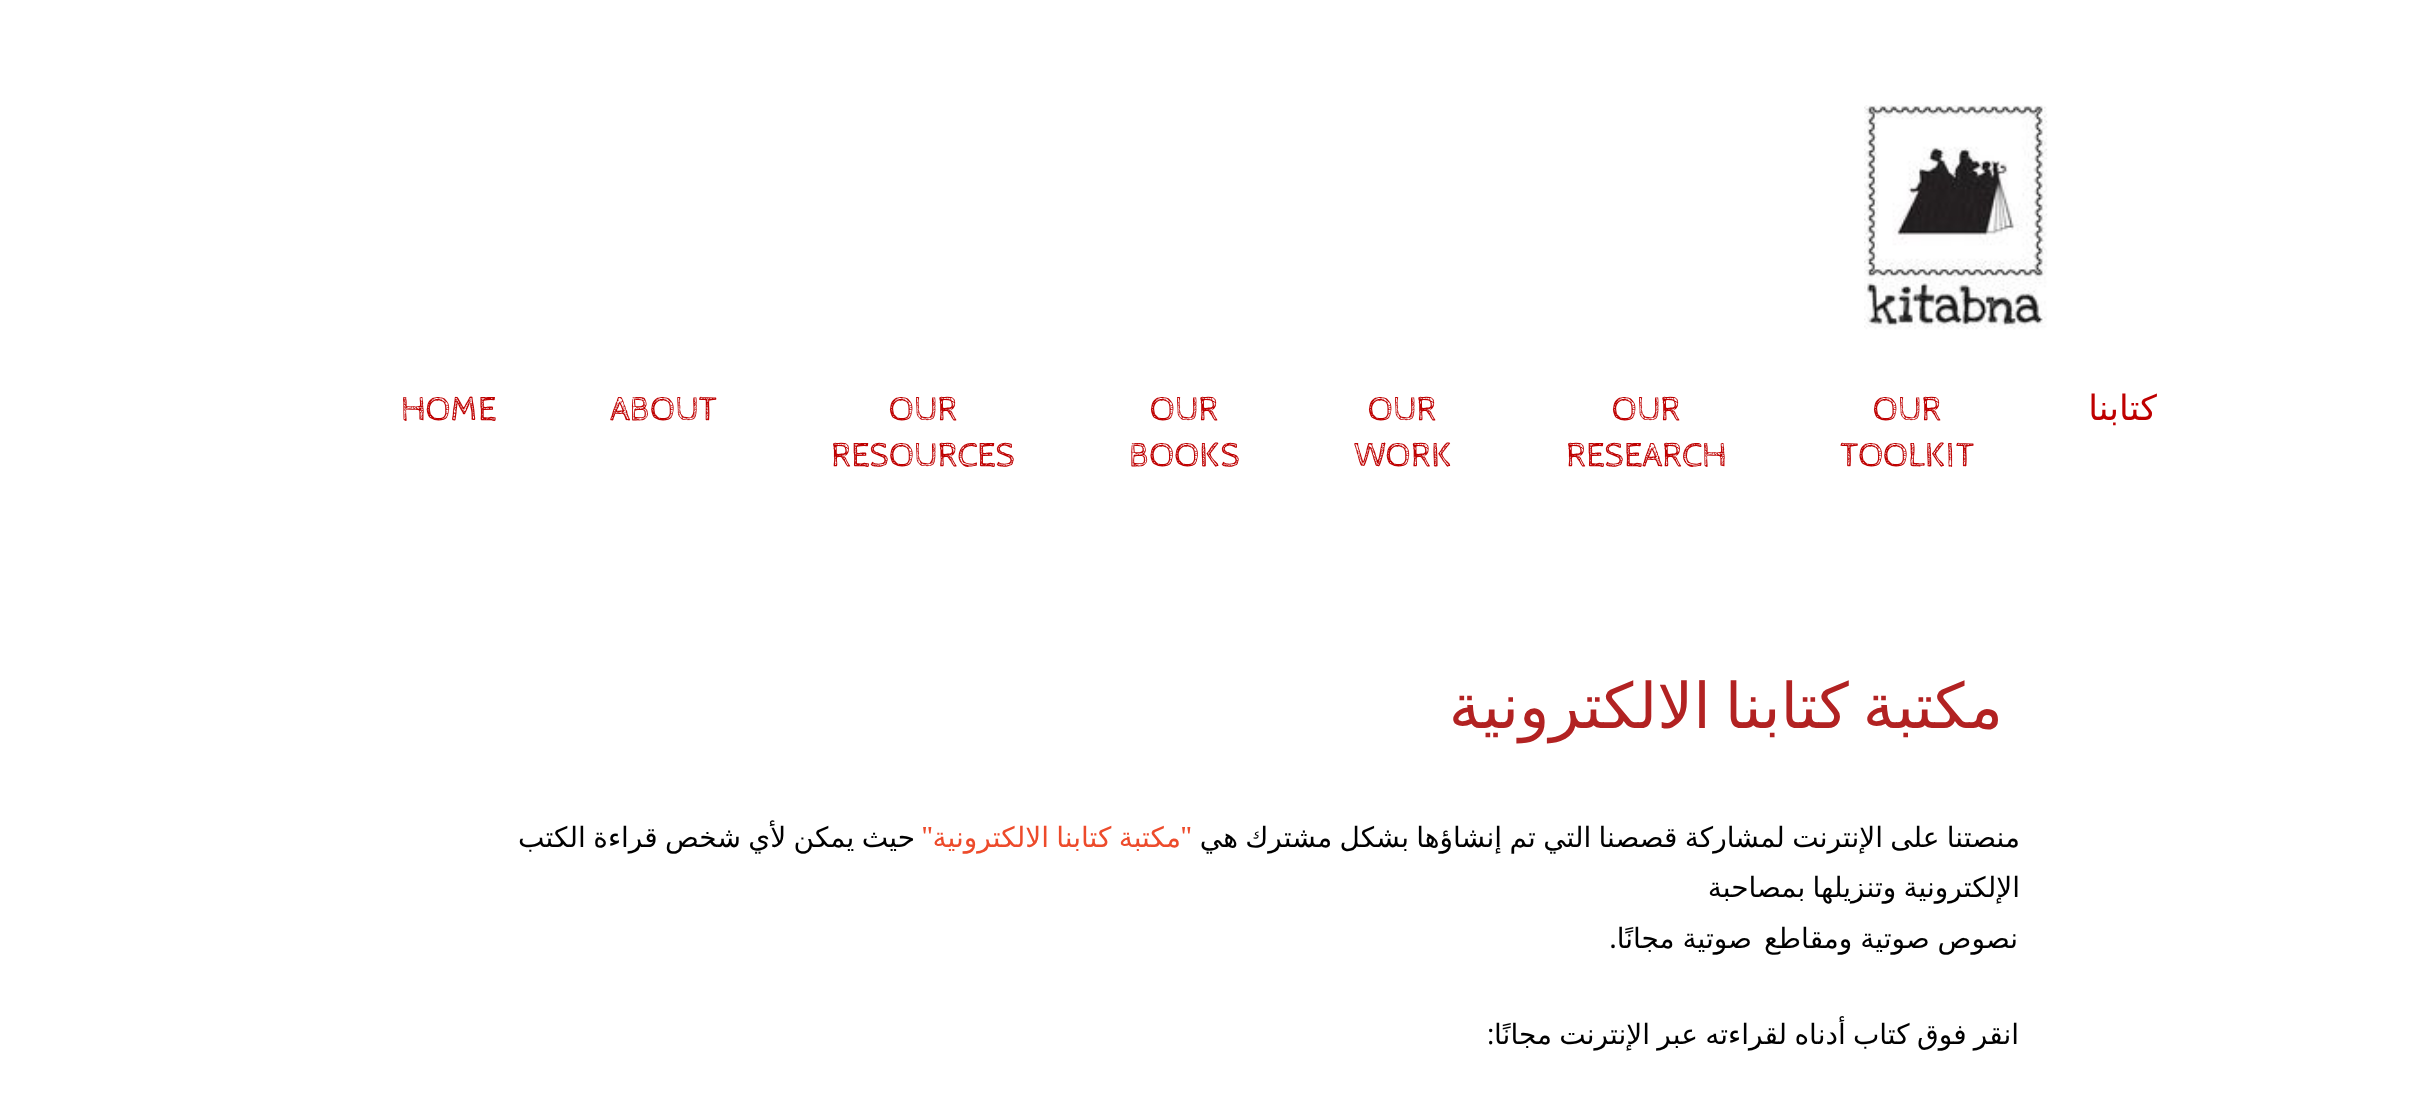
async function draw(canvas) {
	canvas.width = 2425;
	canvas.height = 1120;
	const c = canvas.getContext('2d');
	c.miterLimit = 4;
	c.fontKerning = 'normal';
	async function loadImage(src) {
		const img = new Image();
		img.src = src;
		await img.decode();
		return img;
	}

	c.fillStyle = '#fff';
	c.fillRect(0, 0, 2425, 1120);
	c.drawImage(await loadImage('img1.png'), 1864, 105, 184, 225);
	c.direction = 'rtl';
	c.font = '35px DejaVu Sans';
	c.fillStyle = '#bf0000';
	c.fillText('كتابنا', 2157, 420);
	c.direction = 'ltr';
	c.font = '35px Cabin Sketch';
	for (const [text, x, y] of [
		['OUR', 1873, 420],
		['TOOLKIT', 1840, 466],
		['OUR', 1612, 420],
		['RESEARCH', 1566, 466],
		['OUR', 1368, 420],
		['WORK', 1354, 466],
		['OUR', 1150, 420],
		['BOOKS', 1129, 466],
		['OUR', 889, 420],
		['RESOURCES', 831, 466],
		['ABOUT', 610, 420],
		['HOME', 401, 420],
	]) {
		c.fillText(text, x, y);
	}
	c.wordSpacing = '-6px';
	c.direction = 'rtl';
	c.font = '63px DejaVu Sans';
	c.fillStyle = '#b22222';
	c.fillText('مكتبة كتابنا الالكترونية', 2003, 728);
	c.wordSpacing = '-1.6px';
	c.font = '28px DejaVu Sans';
	c.fillStyle = '#000';
	c.fillText('منصتنا على الإنترنت لمشاركة قصصنا التي تم إنشاؤها بشكل مشترك هي', 2020, 847);
	c.wordSpacing = '0px';
	c.font = '28px Droid Serif';
	c.fillStyle = '#ed4b2b';
	c.fillText('"', 1192, 847);
	c.wordSpacing = '-1.6px';
	c.font = '28px DejaVu Sans';
	c.fillText('مكتبة كتابنا الالكترونية', 1181, 847);
	c.wordSpacing = '0px';
	c.font = '28px Droid Serif';
	c.fillText('"', 933, 847);
	c.wordSpacing = '-1.5px';
	c.font = '28px DejaVu Sans';
	c.fillStyle = '#000';
	c.fillText('حيث يمكن لأي شخص قراءة الكتب', 915, 847);
	c.wordSpacing = '-1.6px';
	c.fillText('الإلكترونية وتنزيلها بمصاحبة', 2020, 897);
	c.wordSpacing = '-1px';
	c.fillText('نصوص صوتية ومقاطع', 2018, 948);
	c.fillText('صوتية مجانًا', 1752, 948);
	c.wordSpacing = '0px';
	c.direction = 'ltr';
	c.font = '28px Droid Serif';
	c.fillText('.', 1609, 948);
	c.wordSpacing = '-1.6px';
	c.direction = 'rtl';
	c.font = '28px DejaVu Sans';
	c.fillText('انقر فوق كتاب أدناه لقراءته عبر الإنترنت مجانًا', 2019, 1044);
	c.wordSpacing = '0px';
	c.direction = 'ltr';
	c.font = '28px Open Sans';
	c.fillText(':', 1487, 1044);
}

draw(document.querySelector('canvas'));
